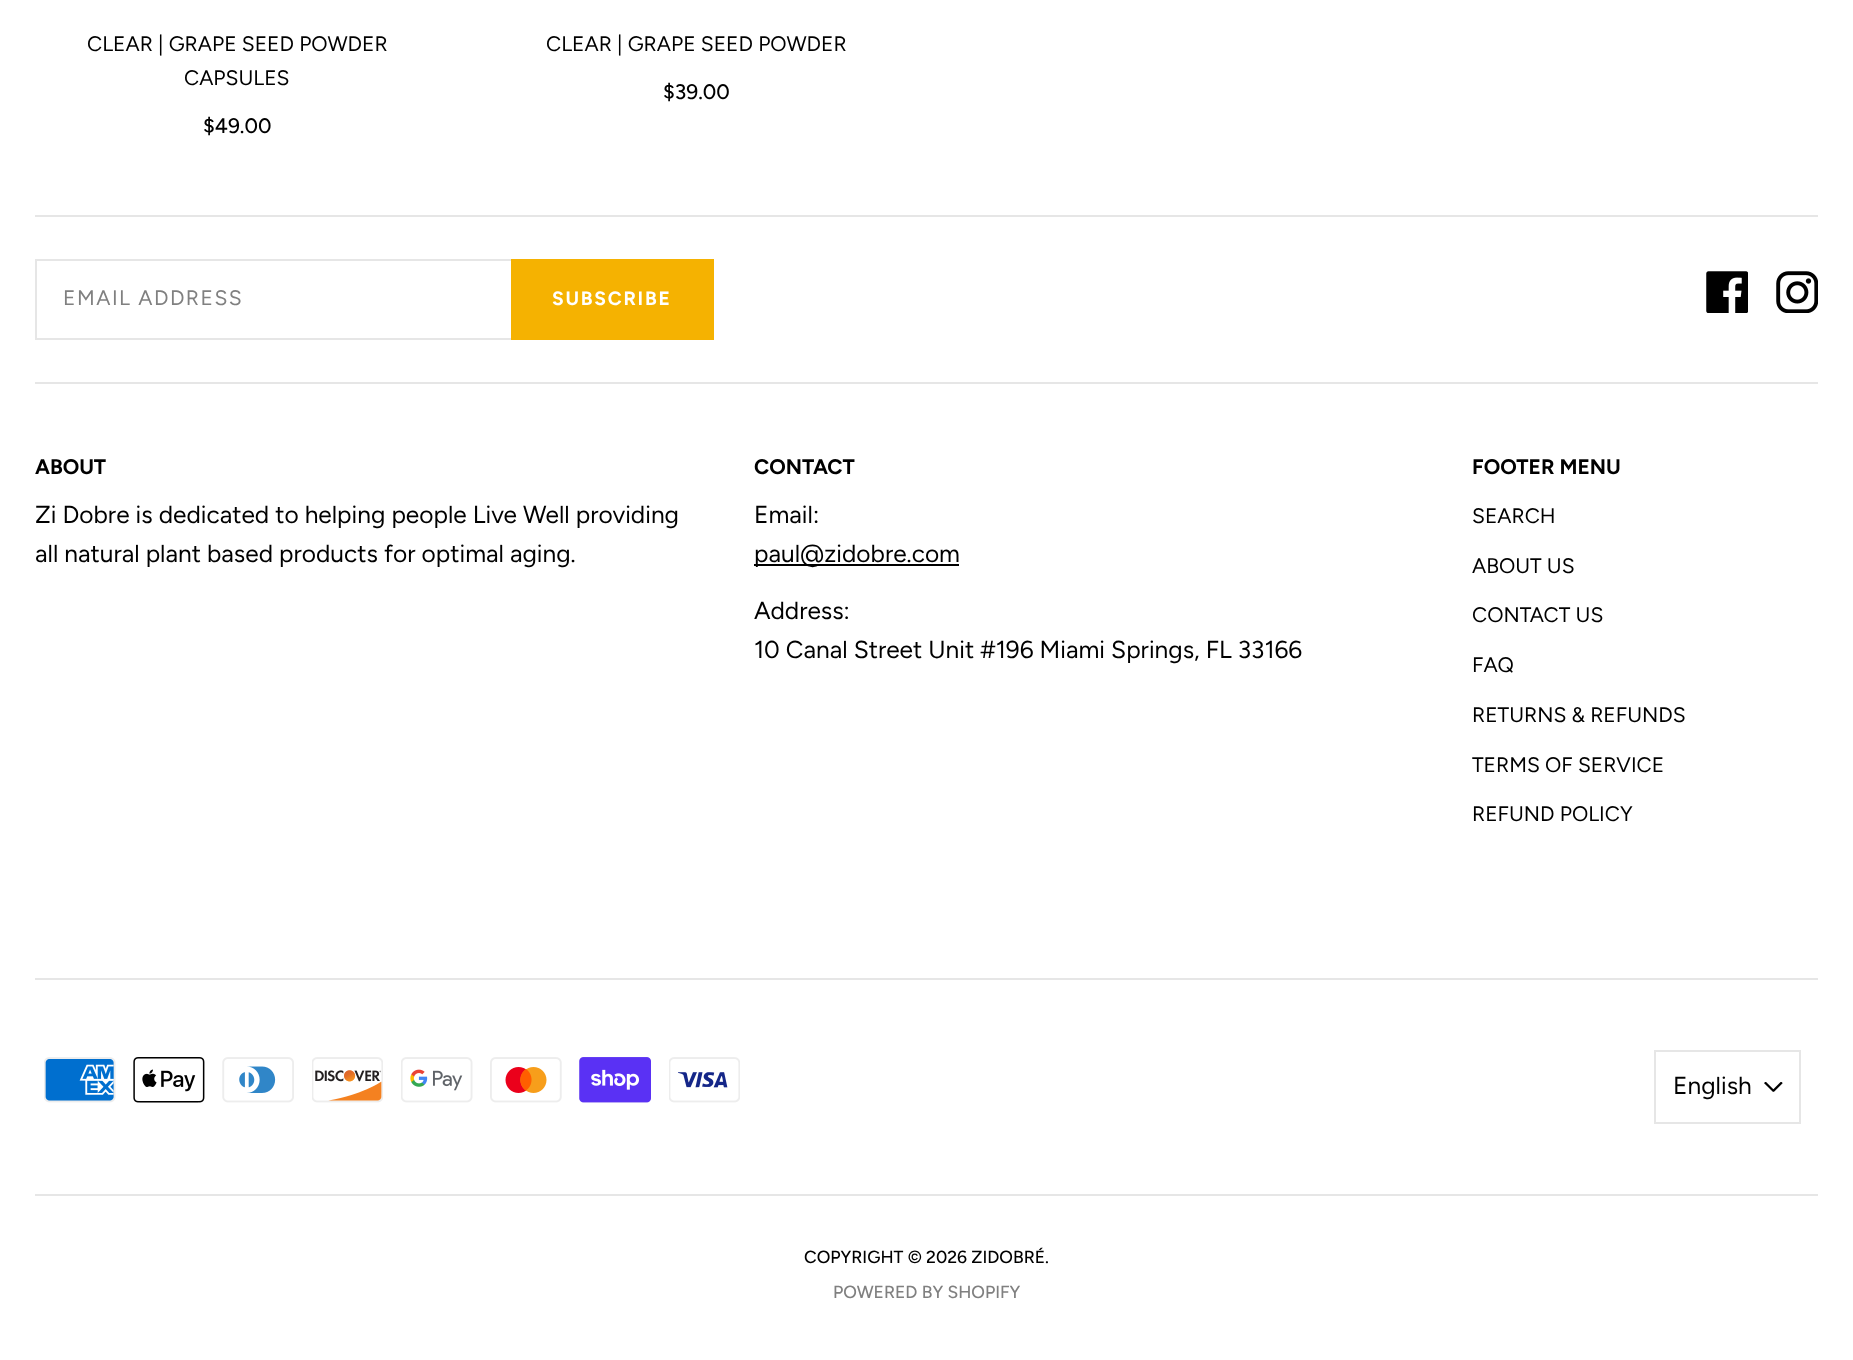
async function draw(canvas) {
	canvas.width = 1853;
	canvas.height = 1360;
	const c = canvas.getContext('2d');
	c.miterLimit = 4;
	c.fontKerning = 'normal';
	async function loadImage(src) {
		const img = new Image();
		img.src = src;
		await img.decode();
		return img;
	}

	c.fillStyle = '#fff';
	c.fillRect(0, 0, 1853, 1360);
	c.font = '21px Figtree';
	c.fillStyle = '#000';
	c.fillText('CLEAR | GRAPE SEED POWDER', 87, 51);
	c.fillText('CAPSULES', 184, 85);
	c.font = '500 21px Figtree';
	c.fillText('$49.00', 203, 133);
	c.font = '21px Figtree';
	c.fillText('CLEAR | GRAPE SEED POWDER', 546, 51);
	c.font = '500 21px Figtree';
	c.fillText('$39.00', 663, 99);
	for (const [x, y, w, h, color] of [
		[35, 215, 1783, 2, '#e6e6e6'],
		[35, 259, 476, 2, '#e6e6e6'],
		[35, 338, 476, 2, '#e6e6e6'],
		[35, 259, 2, 81, '#e6e6e6'],
	]) {
		c.fillStyle = color;
		c.fillRect(x, y, w, h);
	}
	c.letterSpacing = '1.5px';
	c.font = '21px Figtree';
	c.fillStyle = '#808080';
	c.fillText('EMAIL ADDRESS', 63, 305);
	c.fillStyle = '#f5b201';
	c.fillRect(511, 259, 203, 81);
	c.letterSpacing = '1.75px';
	c.font = 'bold 19.25px Figtree';
	c.fillStyle = '#fff';
	c.fillText('SUBSCRIBE', 552, 305);
	c.drawImage(await loadImage('img1.png'), 1706, 271, 42, 42);
	c.drawImage(await loadImage('img2.png'), 1776, 271, 42, 42);
	c.fillStyle = '#e6e6e6';
	c.fillRect(35, 382, 1783, 2);
	c.letterSpacing = '0px';
	c.font = 'bold 21px Figtree';
	c.fillStyle = '#000';
	c.fillText('ABOUT', 35, 474);
	c.font = '24.5px Figtree';
	c.fillText('Zi Dobre is dedicated to helping people Live Well providing', 35, 523);
	c.fillText('all natural plant based products for optimal aging.', 35, 562);
	c.font = 'bold 21px Figtree';
	c.fillText('CONTACT', 754, 474);
	c.font = '24.5px Figtree';
	c.fillText('Email:', 754, 523);
	c.fillRect(754, 564, 205, 2);
	for (const [text, x, y] of [
		['paul@zidobre.com', 754, 562],
		['Address:', 754, 619],
		['10 Canal Street Unit #196 Miami Springs, FL 33166', 754, 658],
	]) {
		c.fillText(text, x, y);
	}
	c.font = 'bold 21px Figtree';
	c.fillText('FOOTER MENU', 1472, 474);
	c.font = '21px Figtree';
	for (const [text, x, y] of [
		['SEARCH', 1472, 523],
		['ABOUT US', 1472, 573],
		['CONTACT US', 1472, 622],
		['FAQ', 1472, 672],
		['RETURNS & REFUNDS', 1472, 722],
		['TERMS OF SERVICE', 1472, 772],
		['REFUND POLICY', 1472, 821],
	]) {
		c.fillText(text, x, y);
	}
	c.fillStyle = '#e6e6e6';
	c.fillRect(35, 978, 1783, 2);
	c.drawImage(await loadImage('img3.png'), 44, 1057, 72, 46);
	c.drawImage(await loadImage('img4.png'), 133, 1057, 72, 46);
	c.drawImage(await loadImage('img5.png'), 222, 1057, 72, 46);
	c.drawImage(await loadImage('img6.png'), 312, 1057, 71, 46);
	c.drawImage(await loadImage('img7.png'), 401, 1057, 72, 46);
	c.drawImage(await loadImage('img8.png'), 490, 1057, 72, 46);
	c.drawImage(await loadImage('img9.png'), 579, 1057, 72, 46);
	c.drawImage(await loadImage('img10.png'), 669, 1057, 71, 46);
	c.strokeStyle = '#e6e6e6';
	c.lineWidth = 2;
	c.strokeRect(1655, 1051, 145, 72);
	c.font = '24.5px Figtree';
	c.fillStyle = '#000';
	c.fillText('English', 1673, 1094);
	c.drawImage(await loadImage('img11.png'), 1764, 1082, 19, 10);
	c.fillStyle = '#e6e6e6';
	c.fillRect(35, 1194, 1783, 2);
	c.font = '500 17.5px Figtree';
	c.fillStyle = '#000';
	c.fillText('COPYRIGHT © 2026 ZIDOBRÉ.', 804, 1263);
	c.fillStyle = '#808080';
	c.fillText('POWERED BY SHOPIFY', 833, 1298);
}

draw(document.querySelector('canvas'));
